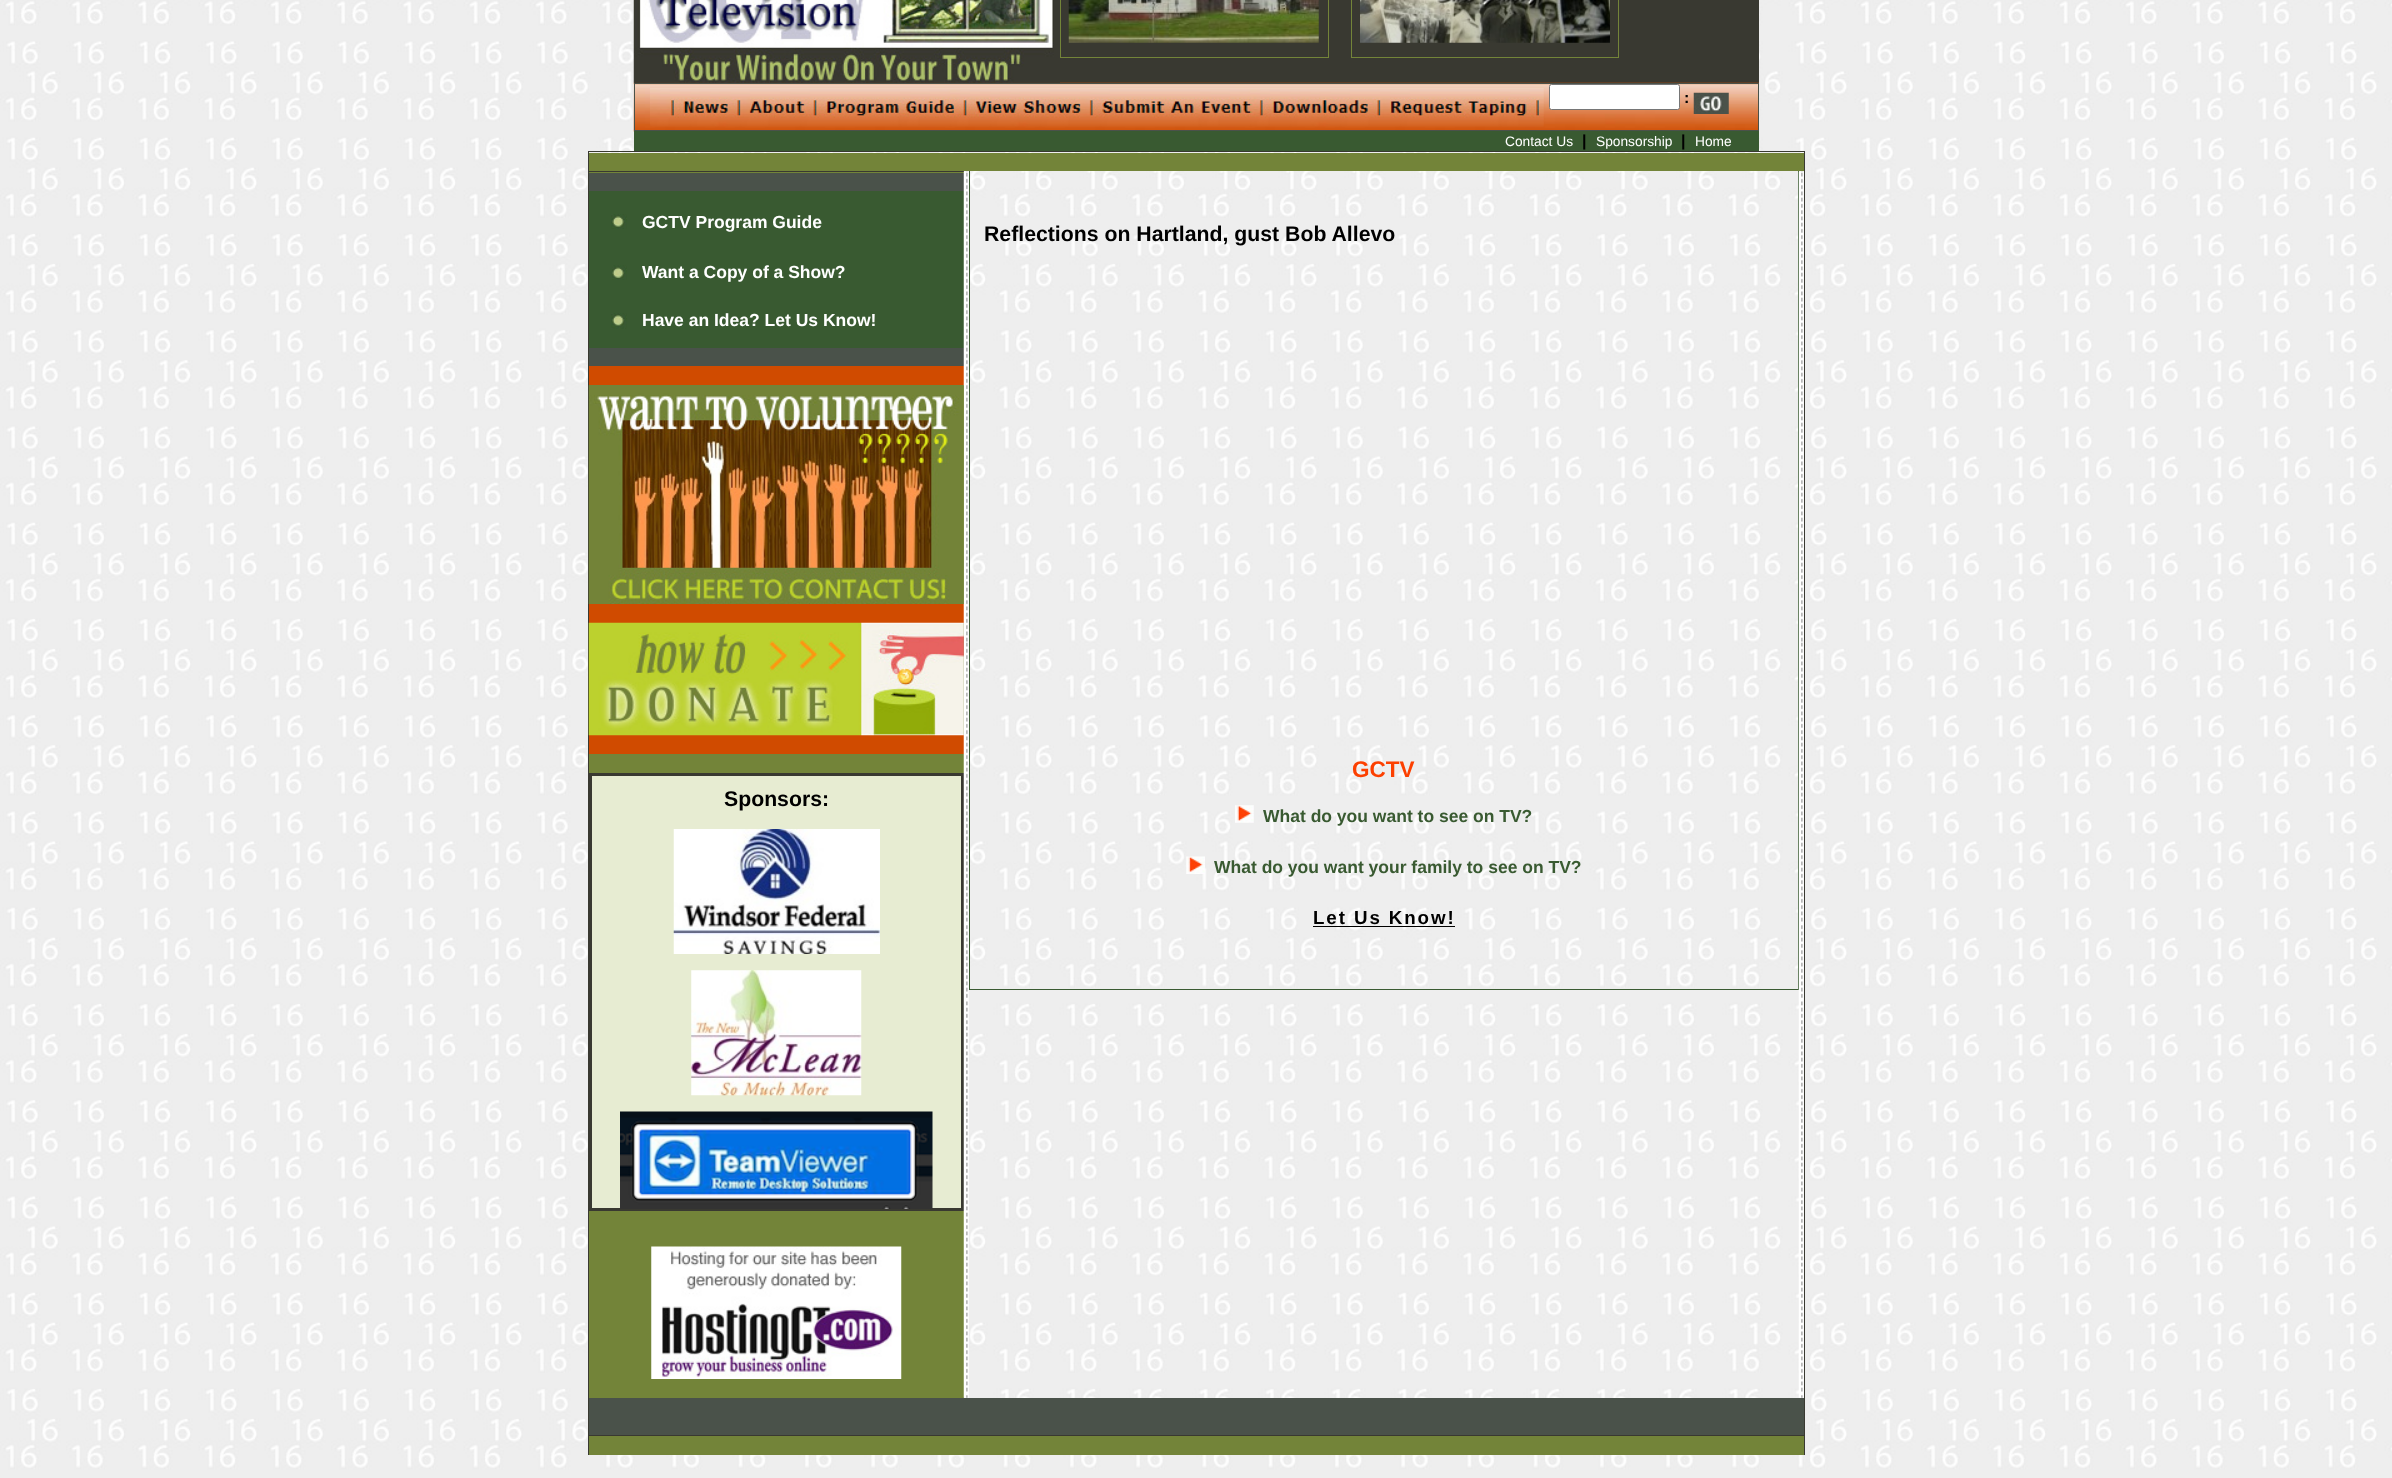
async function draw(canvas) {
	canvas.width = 2392;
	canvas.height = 1478;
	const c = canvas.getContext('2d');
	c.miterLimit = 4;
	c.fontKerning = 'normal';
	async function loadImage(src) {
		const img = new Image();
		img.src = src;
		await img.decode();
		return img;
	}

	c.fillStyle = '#fff';
	c.fillRect(0, 0, 2392, 1478);
	c.drawImage(await loadImage('img1.png'), 0, 0, 2392, 1478);
	c.fillStyle = '#393931';
	c.fillRect(634, 0, 1125, 83);
	c.drawImage(await loadImage('img5.png'), 633, 82, 1126, 50);
	c.drawImage(await loadImage('img2.png'), 633, 0, 427, 83);
	c.strokeStyle = '#738439';
	c.strokeRect(1060.5, -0.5, 268, 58);
	c.drawImage(await loadImage('img3.png'), 1068, 0, 251, 43);
	c.strokeRect(1351.5, -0.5, 267, 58);
	c.drawImage(await loadImage('img4.png'), 1360, 0, 250, 43);
	c.strokeStyle = '#4a524a';
	c.strokeRect(634.5, 83.5, 1124, 47);
	c.drawImage(await loadImage('img6.png'), 650, 88, 894, 39);
	c.fillStyle = '#fff';
	c.beginPath();
	c.roundRect(1549.5, 84.5, 130, 25, 2);
	c.fill();
	c.strokeStyle = '#767676';
	c.stroke();
	c.font = 'bold 16px Liberation Sans';
	c.fillStyle = '#000';
	c.fillText(':', 1684, 103);
	c.drawImage(await loadImage('img7.png'), 1693, 92, 36, 22);
	c.fillStyle = '#395a31';
	c.fillRect(634, 131, 1125, 20);
	c.font = '13.75px Liberation Sans';
	c.fillStyle = '#fff';
	c.fillText('Contact Us', 1505, 146);
	c.font = 'bold 16px Liberation Sans';
	c.fillStyle = '#000';
	c.fillText('|', 1582, 146);
	c.font = '13.75px Liberation Sans';
	c.fillStyle = '#fff';
	c.fillText('Sponsorship', 1596, 146);
	c.font = 'bold 16px Liberation Sans';
	c.fillStyle = '#000';
	c.fillText('|', 1681, 146);
	c.font = '13.75px Liberation Sans';
	c.fillStyle = '#fff';
	c.fillText('Home', 1695, 146);
	c.strokeStyle = '#393931';
	c.strokeRect(588.5, 151.5, 1216, 1284);
	for (const [x, y, w, h, color] of [
		[589, 153, 1215, 18, '#738439'],
		[589, 172, 375, 1226, '#738439'],
		[589, 171, 375, 1, '#393931'],
		[589, 173, 375, 18, '#4a524a'],
		[589, 191, 375, 157, '#395a31'],
	]) {
		c.fillStyle = color;
		c.fillRect(x, y, w, h);
	}
	c.drawImage(await loadImage('img8.png'), 611, 214, 16, 15);
	c.font = 'bold 17.5px Liberation Sans';
	c.fillStyle = '#fff';
	c.fillText('GCTV Program Guide', 642, 228);
	c.drawImage(await loadImage('img9.png'), 612, 265, 15, 15);
	c.fillText('Want a Copy of a Show?', 642, 278);
	c.drawImage(await loadImage('img10.png'), 611, 313, 16, 16);
	c.fillText('Have an Idea? Let Us Know!', 642, 326);
	for (const [x, y, w, h, color] of [
		[589, 348, 375, 18, '#4a524a'],
		[589, 366, 375, 19, '#d04b00'],
		[589, 604, 375, 19, '#d04b00'],
		[589, 735, 375, 19, '#d04b00'],
	]) {
		c.fillStyle = color;
		c.fillRect(x, y, w, h);
	}
	c.fillStyle = '#e7ecd2';
	c.beginPath();
	c.rect(590.5, 774.5, 372, 435);
	c.fill();
	c.lineWidth = 3;
	c.stroke();
	c.drawImage(await loadImage('img17.png'), 963, 171, 6, 1227);
	c.drawImage(await loadImage('img11.png'), 588, 385, 376, 219);
	c.drawImage(await loadImage('img12.png'), 588, 622, 376, 114);
	c.font = 'bold 21.25px Liberation Sans';
	c.fillStyle = '#000';
	c.fillText('Sponsors:', 724, 806);
	c.drawImage(await loadImage('img13.png'), 673, 829, 207, 125);
	c.drawImage(await loadImage('img14.png'), 691, 970, 171, 126);
	c.drawImage(await loadImage('img15.png'), 620, 1111, 313, 98);
	c.drawImage(await loadImage('img16.png'), 651, 1246, 251, 133);
	for (const [x, y, w, h, color] of [
		[1798, 171, 1, 819, '#395a31'],
		[969, 989, 830, 1, '#395a31'],
		[969, 171, 1, 819, '#395a31'],
	]) {
		c.fillStyle = color;
		c.fillRect(x, y, w, h);
	}
	c.fillStyle = '#000';
	c.fillText('Reflections on Hartland, gust Bob Allevo', 984, 241);
	c.font = 'bold 22.5px Liberation Sans';
	c.fillStyle = '#fc4001';
	c.fillText('GCTV', 1352, 777);
	c.drawImage(await loadImage('img18.png'), 1235, 805, 19, 18);
	c.font = 'bold 17.5px Liberation Sans';
	c.fillStyle = '#395a31';
	c.fillText('What do you want to see on TV?', 1263, 822);
	c.drawImage(await loadImage('img19.png'), 1186, 856, 19, 18);
	c.fillText('What do you want your family to see on TV?', 1214, 873);
	c.letterSpacing = '1.9px';
	c.font = 'bold 18.75px Liberation Sans';
	c.fillStyle = '#000';
	c.fillText('Let Us Know!', 1313, 924);
	c.fillRect(1313, 926, 142, 1);
	c.drawImage(await loadImage('img20.png'), 1798, 171, 6, 1227);
	for (const [x, y, w, h, color] of [
		[589, 1398, 1215, 37, '#4a524a'],
		[589, 1436, 1215, 19, '#738439'],
		[1804, 1436, 1, 19, '#393931'],
		[588, 1436, 1, 19, '#393931'],
	]) {
		c.fillStyle = color;
		c.fillRect(x, y, w, h);
	}
}

draw(document.querySelector('canvas'));
